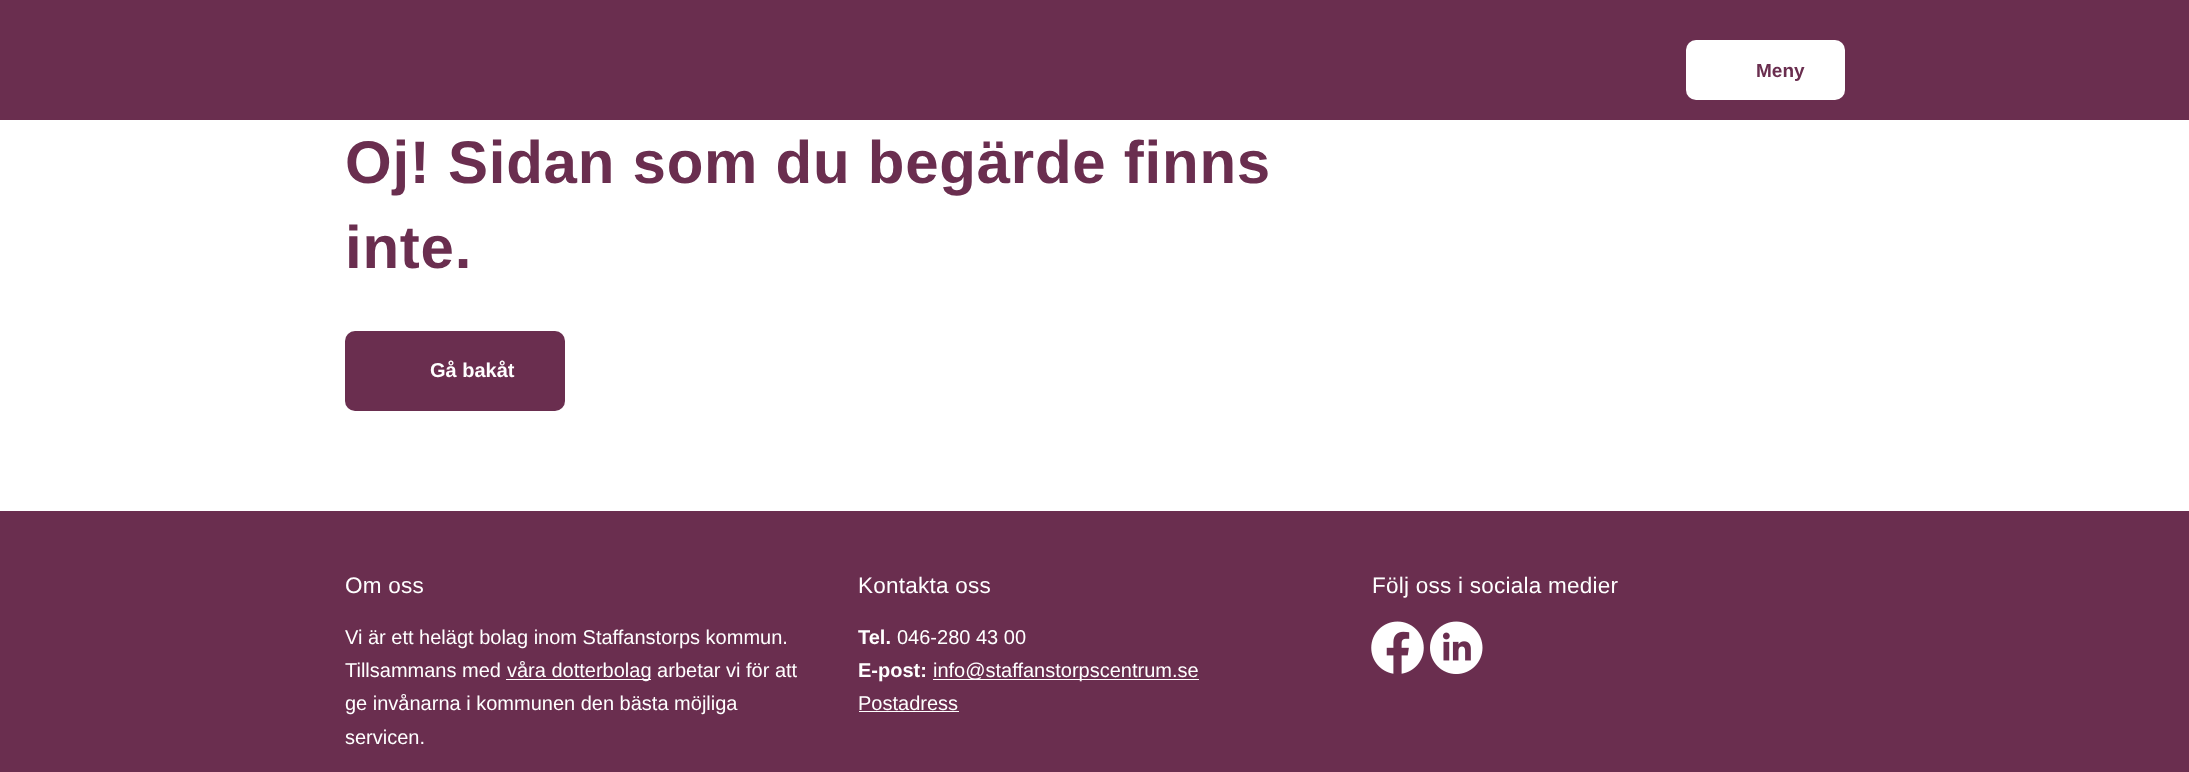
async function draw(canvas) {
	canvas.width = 2189;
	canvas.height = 772;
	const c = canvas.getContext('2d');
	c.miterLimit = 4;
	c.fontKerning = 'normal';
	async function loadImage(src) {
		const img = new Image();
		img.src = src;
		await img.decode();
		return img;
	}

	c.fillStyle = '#fff';
	c.fillRect(0, 0, 2189, 772);
	c.fillStyle = '#6a2e4f';
	c.fillRect(0, 0, 2189, 120);
	c.fillStyle = '#fff';
	c.beginPath();
	c.roundRect(1686, 40, 159, 60, 10);
	c.fill();
	c.font = 'bold 19px Liberation Sans';
	c.fillStyle = '#6a2e4f';
	c.fillText('Meny', 1756, 77);
	c.letterSpacing = '0.75px';
	c.font = 'bold 60px Liberation Sans';
	c.fillText('Oj! Sidan som du begärde finns', 345, 183);
	c.fillText('inte.', 345, 268);
	c.beginPath();
	c.roundRect(345, 331, 220, 80, 10);
	c.fill();
	c.letterSpacing = '0px';
	c.font = 'bold 20px Liberation Sans';
	c.fillStyle = '#fff';
	c.fillText('Gå bakåt', 430, 377);
	c.fillStyle = '#6a2e4f';
	c.fillRect(0, 511, 2189, 261);
	c.letterSpacing = '0.25px';
	c.font = '22.5px Liberation Sans';
	c.fillStyle = '#fff';
	c.fillText('Om oss', 345, 593);
	c.letterSpacing = '0px';
	c.font = '20px Liberation Sans';
	c.fillText('Vi är ett helägt bolag inom Staffanstorps kommun.', 345, 644);
	c.fillText('Tillsammans med', 345, 677);
	c.fillRect(506, 679, 145, 1);
	for (const [text, x, y] of [
		['våra dotterbolag arbetar vi för att', 507, 677],
		['ge invånarna i kommunen den bästa möjliga', 345, 710],
		['servicen.', 345, 744],
	]) {
		c.fillText(text, x, y);
	}
	c.letterSpacing = '0.25px';
	c.font = '22.5px Liberation Sans';
	c.fillText('Kontakta oss', 858, 593);
	c.letterSpacing = '0px';
	c.font = 'bold 20px Liberation Sans';
	c.fillText('Tel.', 858, 644);
	c.font = '20px Liberation Sans';
	c.fillText('046-280 43 00', 897, 644);
	c.font = 'bold 20px Liberation Sans';
	c.fillText('E-post:', 858, 677);
	c.fillRect(933, 679, 266, 1);
	c.font = '20px Liberation Sans';
	c.fillText('info@staffanstorpscentrum.se', 933, 677);
	c.fillText('Postadress', 858, 710);
	c.fillRect(859, 711, 100, 1);
	c.letterSpacing = '0.25px';
	c.font = '22.5px Liberation Sans';
	c.fillText('Följ oss i sociala medier', 1372, 593);
	c.drawImage(await loadImage('img1.png'), 1371, 621, 53, 53);
	c.drawImage(await loadImage('img2.png'), 1430, 621, 53, 53);
}

draw(document.querySelector('canvas'));
